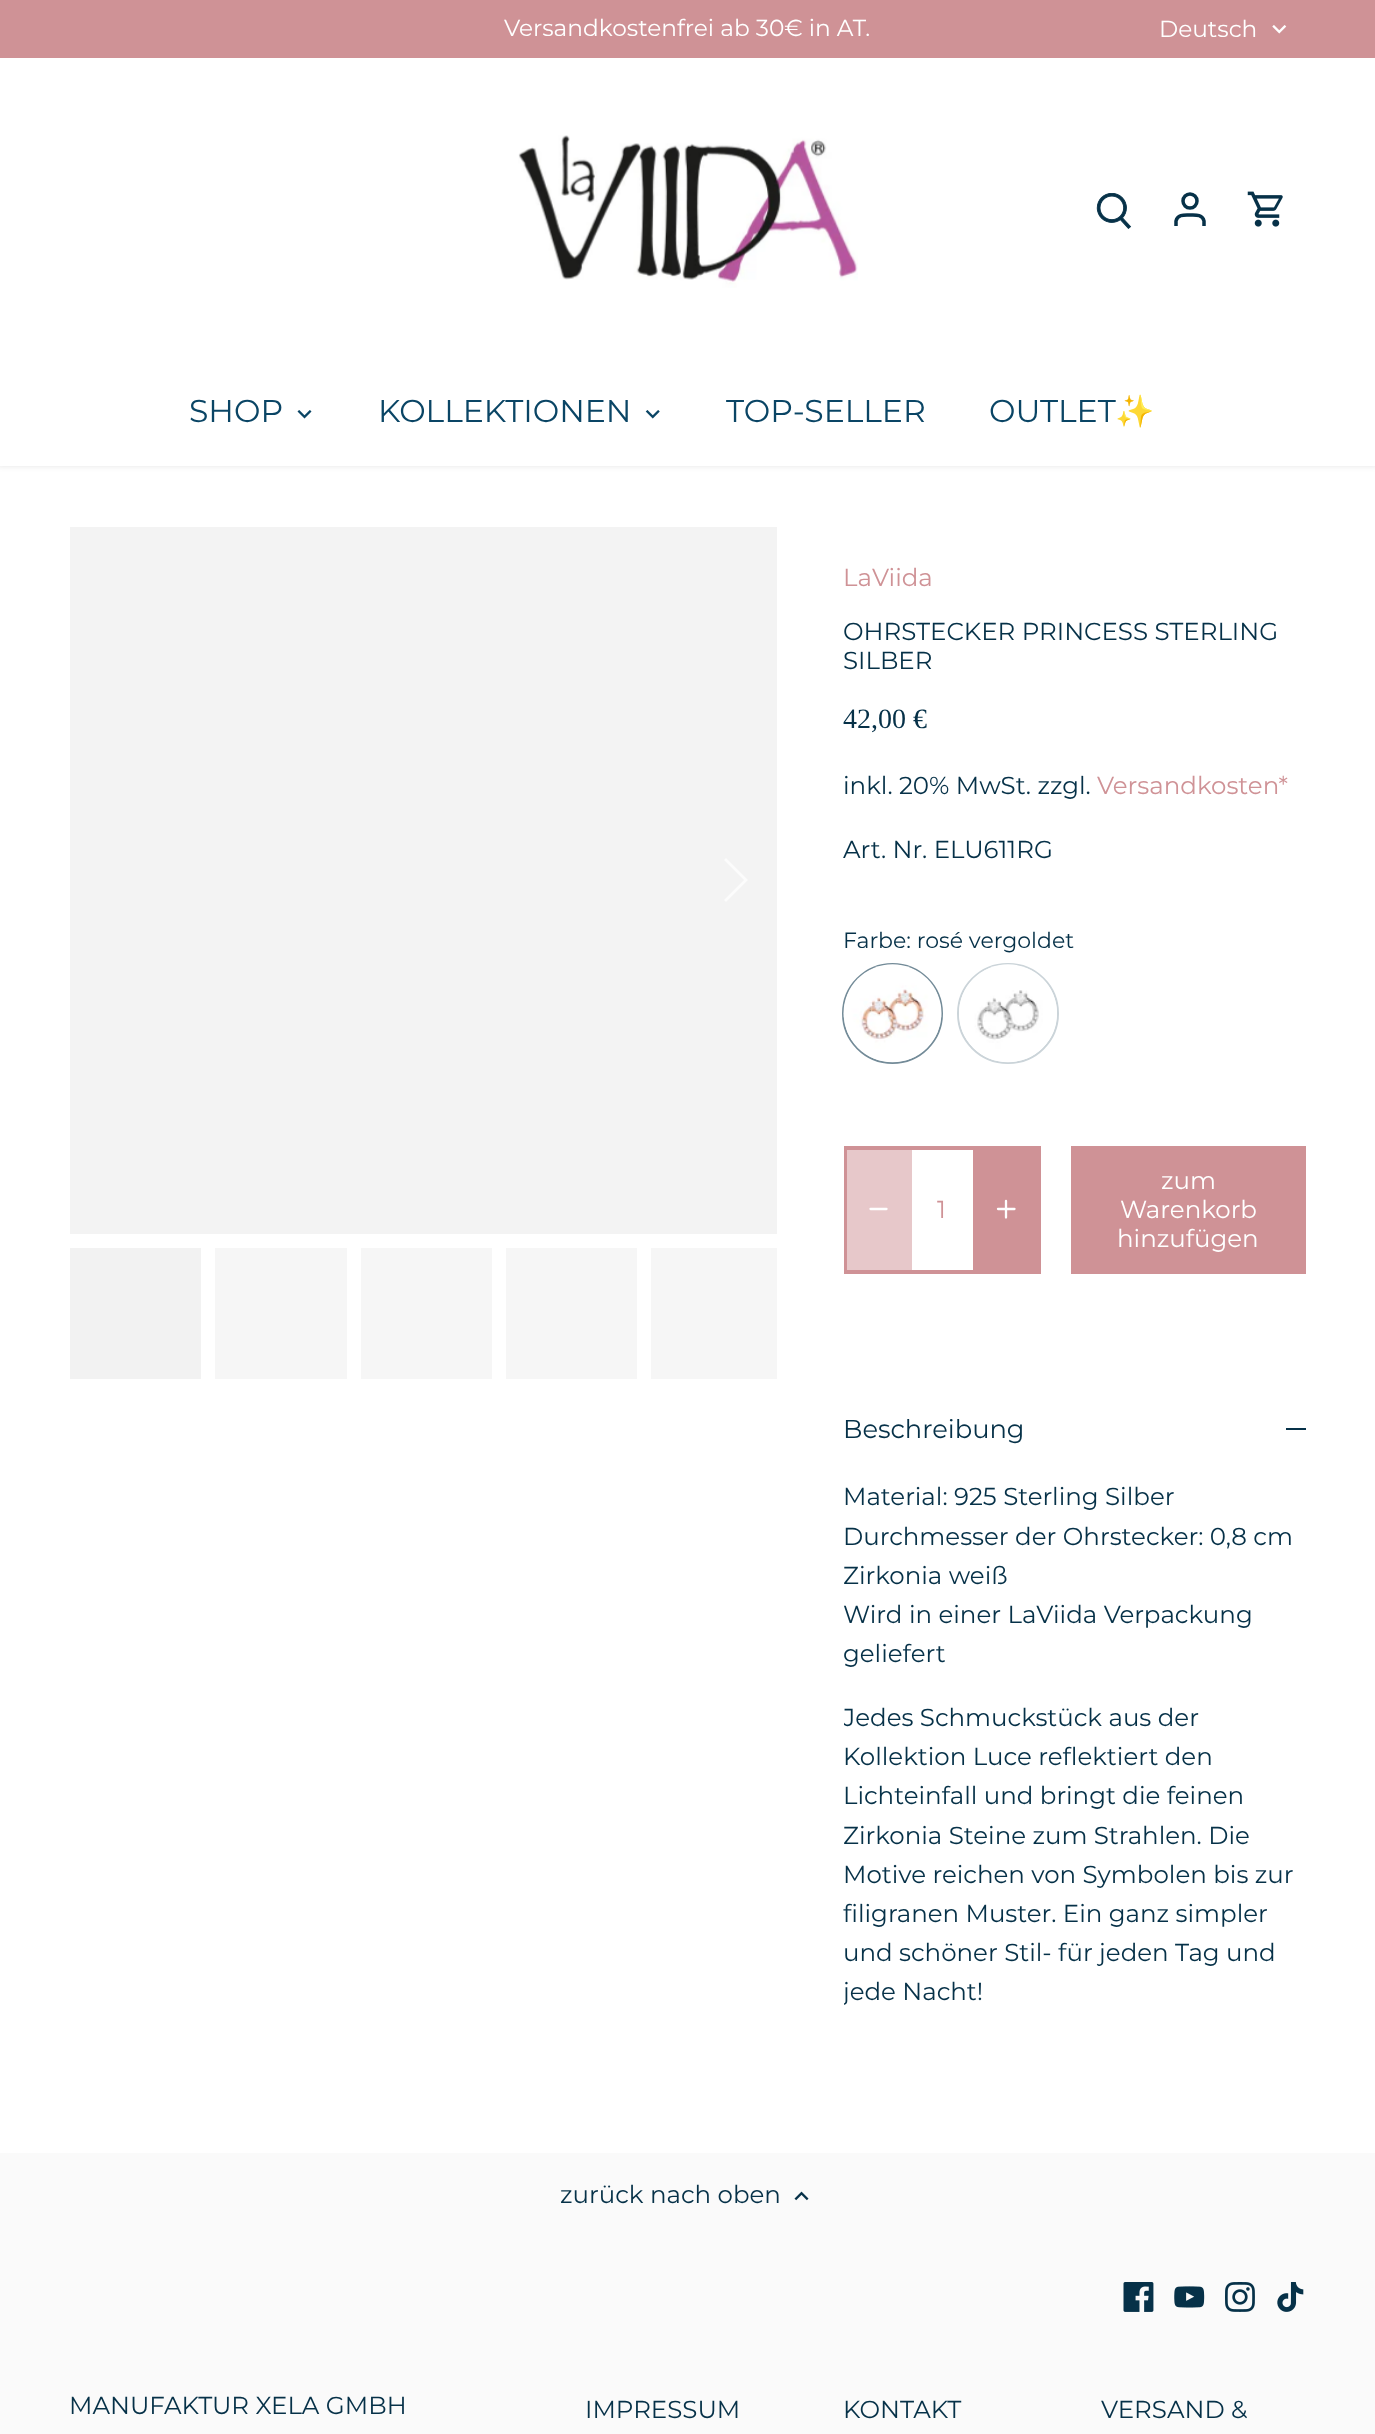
async function draw(canvas) {
	canvas.width = 1375;
	canvas.height = 2434;
	const c = canvas.getContext('2d');
	c.miterLimit = 4;
	c.fontKerning = 'normal';
	async function loadImage(src) {
		const img = new Image();
		img.src = src;
		await img.decode();
		return img;
	}

	c.fillStyle = '#fafafa';
	c.fillRect(0, 0, 1375, 2434);
	c.fillStyle = '#fff';
	c.fillRect(0, 466, 1375, 1687);
	c.fillStyle = '#00000014';
	c.filter = 'blur(2.5px)';
	c.beginPath();
	c.rect(-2, 56, 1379, 411);
	c.fill();
	c.filter = 'none';
	c.fillStyle = '#cf9296';
	c.fillRect(0, 0, 1375, 58);
	c.font = '23.25px Montserrat';
	c.fillStyle = '#fff';
	c.fillText('Versandkostenfrei ab 30€ in AT.', 504, 36);
	c.fillText('Deutsch', 1159, 37);
	c.drawImage(await loadImage('img1.png'), 1272, 25, 15, 9);
	c.fillRect(0, 58, 1375, 408);
	c.drawImage(await loadImage('img2.png'), 518, 135, 340, 153);
	c.drawImage(await loadImage('img3.png'), 1096, 193, 36, 36);
	c.beginPath();
	c.arc(1190, 201, 7, 0, 2 * Math.PI);
	c.strokeStyle = '#063148';
	c.lineWidth = 3.5;
	c.stroke();
	c.beginPath();
	c.moveTo(1204, 226);
	c.lineTo(1204, 221);
	c.bezierCurveTo(1202.5, 214, 1195, 215, 1190, 215);
	c.bezierCurveTo(1185, 215, 1177.5, 214, 1176, 221);
	c.lineTo(1176, 226);
	c.stroke();
	c.drawImage(await loadImage('img4.png'), 1247, 191, 36, 36);
	c.font = '31.5px Montserrat';
	c.fillStyle = '#0a4565';
	c.fillText('SHOP', 189, 422);
	c.drawImage(await loadImage('img5.png'), 297, 410, 15, 9);
	c.fillText('KOLLEKTIONEN', 378, 422);
	c.drawImage(await loadImage('img6.png'), 645, 410, 15, 9);
	c.fillText('TOP-SELLER', 726, 422);
	c.fillText('OUTLET', 989, 422);
	c.font = '31.5px Noto Color Emoji';
	c.fillText('✨', 1115, 422);
	c.fillStyle = '#f3f3f3';
	c.fillRect(70, 527, 707, 707);
	c.fillStyle = '#fcfcfc';
	c.beginPath();
	c.moveTo(726, 858);
	c.lineTo(724, 860);
	c.lineTo(744, 880);
	c.lineTo(724, 900);
	c.lineTo(726, 902);
	c.lineTo(748, 880);
	c.closePath();
	c.fill();
	for (const [x, y, w, h, color] of [
		[70, 1248, 131, 131, '#f2f2f2'],
		[215, 1248, 132, 131, '#f6f6f6'],
		[361, 1248, 131, 131, '#f6f6f6'],
		[506, 1248, 131, 131, '#f6f6f6'],
		[651, 1248, 126, 131, '#f6f6f6'],
	]) {
		c.fillStyle = color;
		c.fillRect(x, y, w, h);
	}
	c.font = '24.5px Montserrat';
	c.fillStyle = '#cf9296';
	c.fillText('LaViida', 843, 586);
	c.fillStyle = '#063148';
	c.fillText('OHRSTECKER PRINCESS STERLING', 843, 640);
	c.fillText('SILBER', 843, 669);
	c.font = '28px Liberation Serif';
	c.fillText('42,00 €', 843, 728);
	c.font = '24.5px Montserrat';
	c.fillText('inkl. 20% MwSt. zzgl.', 843, 794);
	c.fillStyle = '#cf9296';
	c.fillText('Versandkosten*', 1097, 794);
	c.fillStyle = '#063148';
	c.fillText('Art. Nr. ELU611RG', 843, 858);
	c.font = '22px Montserrat';
	c.fillText('Farbe: rosé vergoldet', 843, 948);
	c.beginPath();
	c.arc(892.5, 1013.5, 49.5, 0, 2 * Math.PI);
	c.strokeStyle = '#738b98';
	c.lineWidth = 2;
	c.stroke();
	c.drawImage(await loadImage('img7.png'), 843, 964, 99, 99);
	c.beginPath();
	c.roundRect(958, 964, 100, 99, 49.5);
	c.strokeStyle = '#cbd4d9';
	c.stroke();
	c.drawImage(await loadImage('img8.png'), 959, 964, 98, 99);
	c.strokeStyle = '#cf9296';
	c.strokeRect(846, 1149, 193, 122);
	c.strokeRect(845, 1147, 195, 126);
	c.fillStyle = '#cf929680';
	c.fillRect(847, 1150, 65, 120);
	c.beginPath();
	c.moveTo(870.5, 1209);
	c.lineTo(886.5, 1209);
	c.strokeStyle = '#fff';
	c.lineWidth = 2.3;
	c.lineCap = 'round';
	c.lineJoin = 'round';
	c.stroke();
	c.font = '24.5px Montserrat';
	c.fillStyle = '#cf9296';
	c.fillText('1', 937, 1218);
	c.fillRect(973, 1150, 65, 120);
	c.beginPath();
	c.moveTo(1006, 1201);
	c.lineTo(1006, 1217.5);
	c.moveTo(998, 1209);
	c.lineTo(1014.5, 1209);
	c.stroke();
	c.fillRect(1071, 1146, 235, 128);
	c.fillStyle = '#fff';
	for (const [text, x, y] of [
		['zum', 1161, 1189],
		['Warenkorb', 1120, 1218],
		['hinzufügen', 1117, 1247],
	]) {
		c.fillText(text, x, y);
	}
	c.font = '25.75px Montserrat';
	c.fillStyle = '#063148';
	c.fillText('Beschreibung', 843, 1438);
	c.fillRect(1286, 1428, 20, 2);
	c.font = '24.5px Montserrat';
	for (const [text, x, y] of [
		['Material: 925 Sterling Silber', 843, 1505],
		['Durchmesser der Ohrstecker: 0,8 cm', 843, 1545],
		['Zirkonia weiß', 843, 1584],
		['Wird in einer LaViida Verpackung', 843, 1623],
		['geliefert', 843, 1662],
	]) {
		c.fillText(text, x, y);
	}
	c.save();
	c.beginPath();
	c.rect(844, 1477, 462, 569);
	c.clip();
	c.fillText('Jedes Schmuckstück aus der', 843, 1726);
	c.restore();
	for (const [text, x, y] of [
		['Kollektion Luce reflektiert den', 843, 1765],
		['Lichteinfall und bringt die feinen', 843, 1804],
		['Zirkonia Steine zum Strahlen. Die', 843, 1844],
		['Motive reichen von Symbolen bis zur', 843, 1883],
		['filigranen Muster. Ein ganz simpler', 843, 1922],
		['und schöner Stil- für jeden Tag und', 843, 1961],
	]) {
		c.fillText(text, x, y);
	}
	c.save();
	c.beginPath();
	c.rect(844, 1477, 462, 569);
	c.clip();
	c.fillText('jede Nacht!', 843, 2000);
	c.restore();
	c.fillText('zurück nach oben', 560, 2203);
	c.drawImage(await loadImage('img9.png'), 794, 2191, 15, 10);
	c.drawImage(await loadImage('img10.png'), 1123, 2282, 31, 30);
	c.drawImage(await loadImage('img11.png'), 1174, 2286, 31, 22);
	c.drawImage(await loadImage('img12.png'), 1225, 2282, 30, 30);
	c.drawImage(await loadImage('img13.png'), 1277, 2282, 27, 30);
	for (const [text, x, y] of [
		['MANUFAKTUR XELA GMBH', 69, 2414],
		['IMPRESSUM', 585, 2418],
		['KONTAKT', 843, 2418],
		['VERSAND &', 1101, 2418],
	]) {
		c.fillText(text, x, y);
	}
}

draw(document.querySelector('canvas'));
